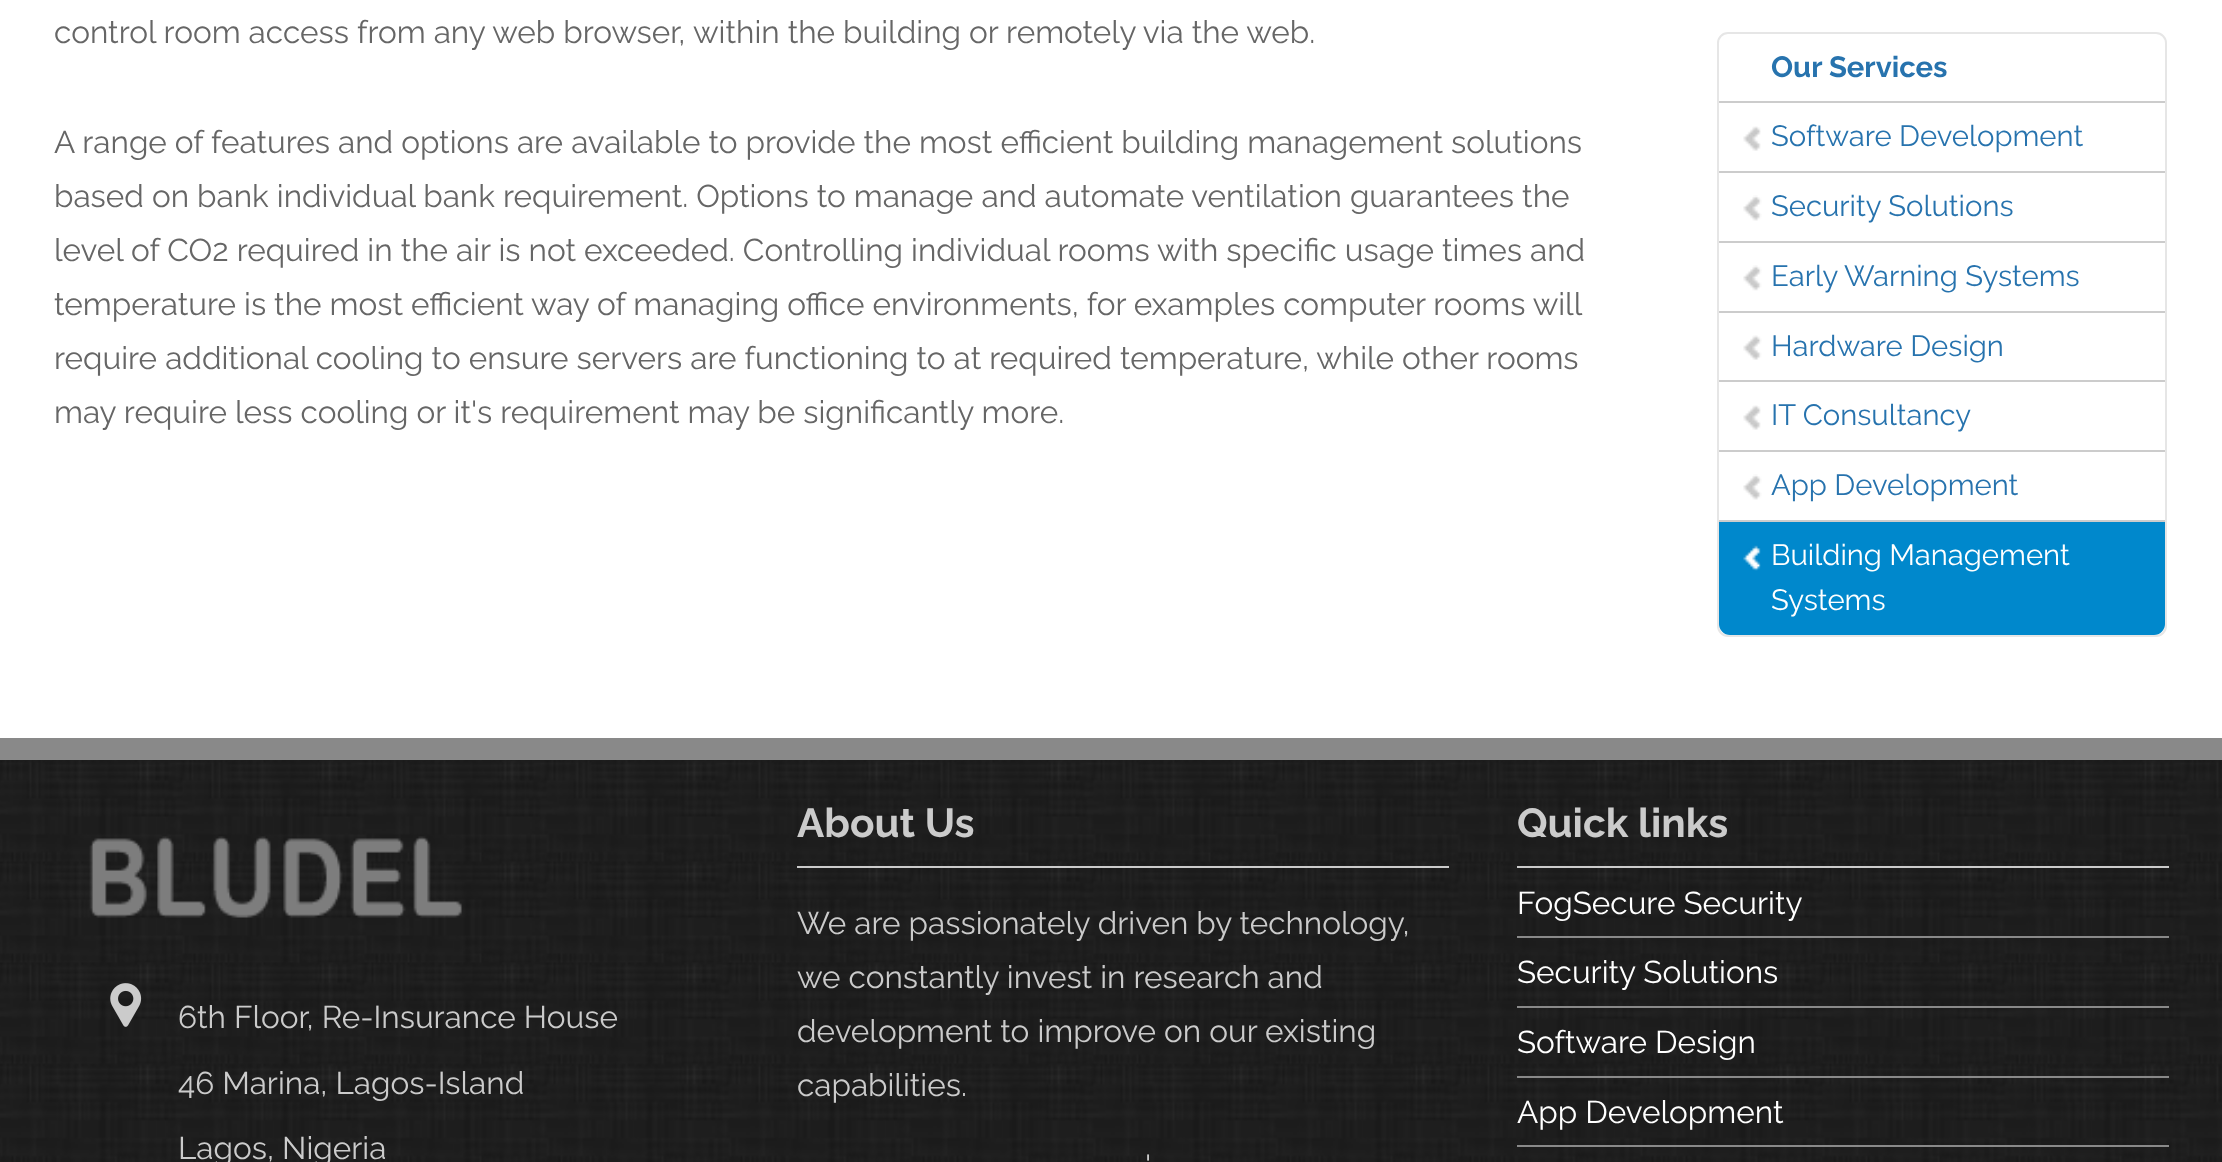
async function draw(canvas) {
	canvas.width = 2222;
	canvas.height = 1162;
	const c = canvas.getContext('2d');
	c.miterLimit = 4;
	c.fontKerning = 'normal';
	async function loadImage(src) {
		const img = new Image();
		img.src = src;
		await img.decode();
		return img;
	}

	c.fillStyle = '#fff';
	c.fillRect(0, 0, 2222, 1162);
	c.font = '31.5px Raleway';
	c.fillStyle = '#666';
	for (const [text, x, y] of [
		['control room access from any web browser,', 54, 43],
		['within the building or remotely via the web.', 693, 43],
		['A range of features and options are available to provide the most efficient building management solutions', 54, 153],
		['based on bank individual bank requirement. Options to manage and automate ventilation guarantees the', 54, 207],
		['level of CO2 required in the air is not exceeded. Controlling individual rooms with specific usage times and', 54, 261],
		['temperature is the most efficient', 54, 315],
		['way of managing office environments, for examples computer rooms will', 531, 315],
		['require additional cooling to ensure servers are functioning to at required temperature, while other rooms', 54, 369],
		['may require less cooling or it\'s requirement may be significantly more.', 54, 423],
	]) {
		c.fillText(text, x, y);
	}
	c.beginPath();
	c.roundRect(1718, 33, 448, 603, 10);
	c.strokeStyle = '#e6e6e6';
	c.lineWidth = 2;
	c.stroke();
	c.fillStyle = '#ccc';
	c.fillRect(1719, 101, 446, 2);
	c.font = 'bold 29.25px Raleway';
	c.fillStyle = '#2773ae';
	c.fillText('Our Services', 1771, 77);
	c.fillStyle = '#ccc';
	c.fillRect(1719, 171, 446, 2);
	c.drawImage(await loadImage('img1.png'), 1743, 126, 18, 25);
	c.font = '29.25px Raleway';
	c.fillStyle = '#2773ae';
	c.fillText('Software Development', 1771, 146);
	c.fillStyle = '#ccc';
	c.fillRect(1719, 241, 446, 2);
	c.drawImage(await loadImage('img2.png'), 1743, 195, 19, 26);
	c.fillStyle = '#2773ae';
	c.fillText('Security Solutions', 1771, 216);
	c.fillStyle = '#ccc';
	c.fillRect(1719, 311, 446, 2);
	c.drawImage(await loadImage('img3.png'), 1743, 265, 19, 26);
	c.fillStyle = '#2773ae';
	c.fillText('Early Warning Systems', 1771, 286);
	c.fillStyle = '#ccc';
	c.fillRect(1719, 380, 446, 2);
	c.drawImage(await loadImage('img4.png'), 1743, 335, 19, 25);
	c.fillStyle = '#2773ae';
	c.fillText('Hardware Design', 1771, 356);
	c.fillStyle = '#ccc';
	c.fillRect(1719, 450, 446, 2);
	c.drawImage(await loadImage('img1.png'), 1743, 405, 18, 25);
	c.fillStyle = '#2773ae';
	c.fillText('IT Consultancy', 1771, 425);
	c.fillStyle = '#ccc';
	c.fillRect(1719, 520, 446, 2);
	c.drawImage(await loadImage('img2.png'), 1743, 474, 19, 26);
	c.fillStyle = '#2773ae';
	c.fillText('App Development', 1771, 495);
	c.fillStyle = '#08c';
	c.beginPath();
	c.roundRect(1719, 522, 446, 113, [0, 0, 11, 11]);
	c.fill();
	c.drawImage(await loadImage('img5.png'), 1743, 545, 18, 26);
	c.fillStyle = '#fff';
	c.fillText('Building Management', 1771, 565);
	c.fillText('Systems', 1771, 610);
	c.fillStyle = '#898989';
	c.fillRect(0, 738, 2222, 22);
	c.drawImage(await loadImage('img6.png'), 0, 760, 2222, 402);
	c.drawImage(await loadImage('img7.png'), 89, 836, 373, 82);
	c.drawImage(await loadImage('img8.png'), 110, 983, 32, 44);
	c.font = '31.5px Raleway';
	c.fillStyle = '#cbcbcb';
	for (const [text, x, y] of [
		['6th Floor, Re-Insurance House', 178, 1028],
		['46 Marina, Lagos-Island', 178, 1094],
		['Lagos, Nigeria', 178, 1159],
	]) {
		c.fillText(text, x, y);
	}
	c.fillRect(797, 866, 652, 2);
	c.font = 'bold 40.5px Raleway';
	c.fillText('About Us', 797, 837);
	c.font = '31.5px Raleway';
	for (const [text, x, y] of [
		['We are passionately driven by technology,', 797, 934],
		['we constantly invest in research and', 797, 988],
		['development to improve on our existing', 797, 1042],
		['capabilities.', 797, 1096],
		['\'', 1145, 1177],
	]) {
		c.fillText(text, x, y);
	}
	c.fillRect(1517, 866, 652, 2);
	c.font = 'bold 40.5px Raleway';
	c.fillText('Quick links', 1517, 837);
	c.fillStyle = '#898989';
	c.fillRect(1517, 936, 652, 2);
	c.font = '31.5px Raleway';
	c.fillStyle = '#fff';
	c.fillText('FogSecure Security', 1517, 914);
	c.fillStyle = '#898989';
	c.fillRect(1517, 1006, 652, 2);
	c.fillStyle = '#fff';
	c.fillText('Security Solutions', 1517, 983);
	c.fillStyle = '#898989';
	c.fillRect(1517, 1076, 652, 2);
	c.fillStyle = '#fff';
	c.fillText('Software Design', 1517, 1053);
	c.fillStyle = '#898989';
	c.fillRect(1517, 1145, 652, 2);
	c.fillStyle = '#fff';
	c.fillText('App Development', 1517, 1123);
}

draw(document.querySelector('canvas'));
